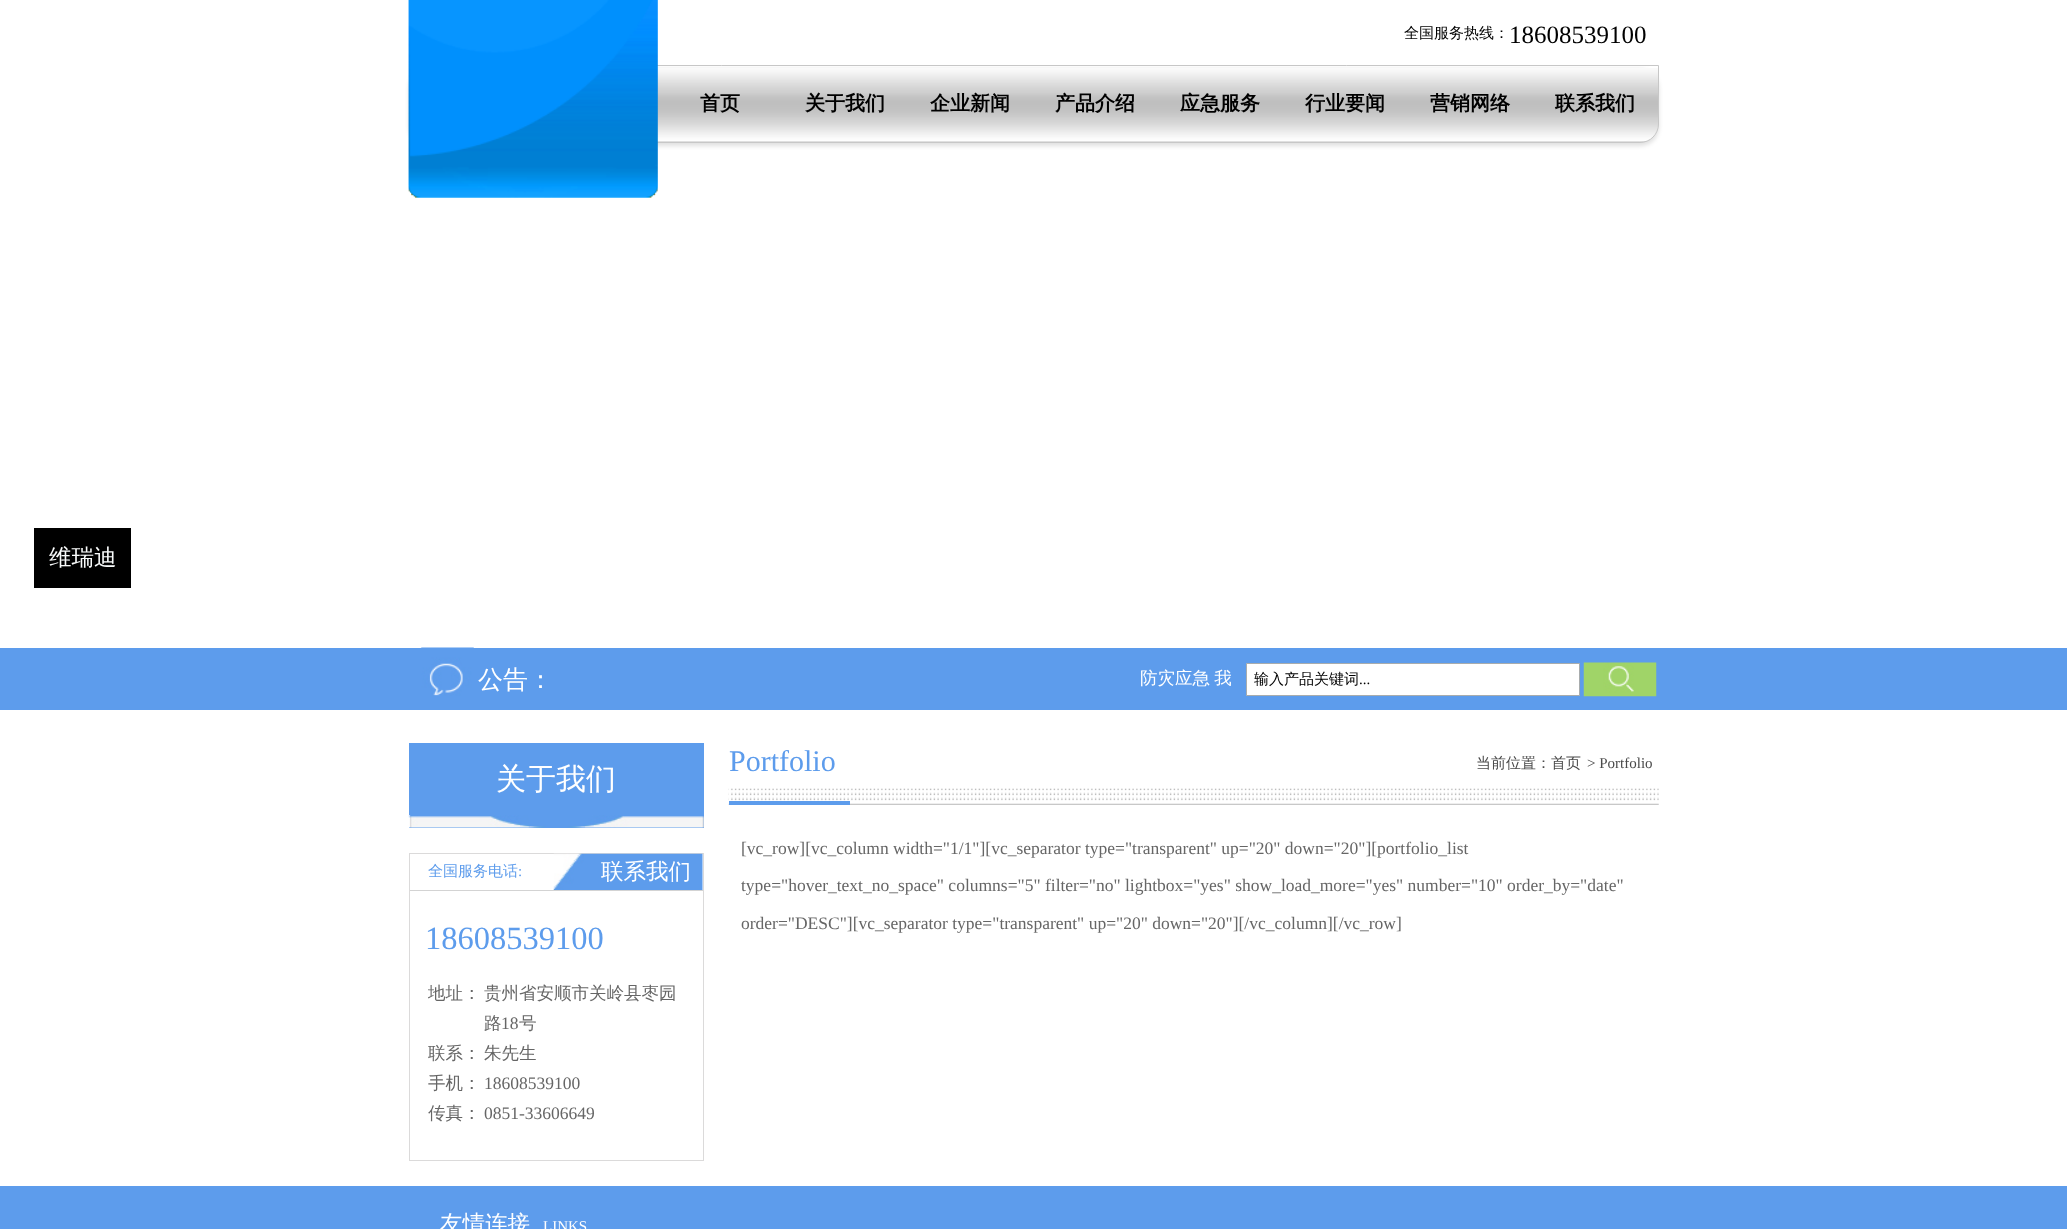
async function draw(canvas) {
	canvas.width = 2067;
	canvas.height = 1229;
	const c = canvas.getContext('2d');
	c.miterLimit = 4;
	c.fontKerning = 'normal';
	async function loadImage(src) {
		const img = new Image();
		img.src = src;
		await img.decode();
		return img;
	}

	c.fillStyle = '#fff';
	c.fillRect(0, 0, 2067, 1229);
	c.fillStyle = '#0000001f';
	c.filter = 'blur(2px)';
	c.beginPath();
	c.roundRect(409, 69, 1250, 77, 19);
	c.fill();
	c.filter = 'none';
	c.drawImage(await loadImage('img3.png'), 657, 68, 1002, 73);
	c.beginPath();
	c.roundRect(409.5, 65.5, 1249, 77, [0, 0, 18.5, 18.5]);
	c.strokeStyle = '#c7c7c7';
	c.stroke();
	c.drawImage(await loadImage('img1.png'), 408, 0, 250, 198);
	c.drawImage(await loadImage('img2.png'), 408, 0, 250, 198);
	c.font = '500 15px WenQuanYi Zen Hei';
	c.fillStyle = '#000';
	c.fillText('全国服务热线：', 1404, 38);
	c.font = '25px Liberation Serif';
	c.fillText('18608539100', 1509, 43);
	c.font = 'bold 20px WenQuanYi Zen Hei';
	for (const [text, x, y] of [
		['首页', 700, 110],
		['关于我们', 805, 110],
		['企业新闻', 930, 110],
		['产品介绍', 1055, 110],
		['应急服务', 1180, 110],
		['行业要闻', 1305, 110],
		['营销网络', 1430, 110],
		['联系我们', 1555, 110],
	]) {
		c.fillText(text, x, y);
	}
	c.fillRect(34, 528, 97, 60);
	c.font = '500 22.5px WenQuanYi Zen Hei';
	c.fillStyle = '#f9fbfb';
	c.fillText('维瑞迪', 49, 565);
	c.fillStyle = '#5d9cec';
	c.fillRect(0, 648, 2067, 62);
	c.drawImage(await loadImage('img4.png'), 421, 647, 53, 49);
	c.font = '500 25px WenQuanYi Zen Hei';
	c.fillStyle = '#fff';
	c.fillText('公告：', 478, 688);
	c.wordSpacing = '-1px';
	c.font = '500 17.5px WenQuanYi Zen Hei';
	c.fillText('防灾应急 我', 1140, 684);
	c.beginPath();
	c.rect(1246.5, 663.5, 333, 32);
	c.fill();
	c.strokeStyle = '#a8acad';
	c.stroke();
	c.wordSpacing = '0px';
	c.font = '500 15px WenQuanYi Zen Hei';
	c.fillStyle = '#000';
	c.fillText('输入产品关键词', 1254, 684);
	c.font = '15px Liberation Serif';
	c.fillText('...', 1359, 684);
	c.drawImage(await loadImage('img5.png'), 1583, 662, 74, 35);
	c.fillStyle = '#5d9cec';
	c.fillRect(409, 743, 295, 85);
	c.drawImage(await loadImage('img6.png'), 408, 815, 296, 13);
	c.font = '500 30px WenQuanYi Zen Hei';
	c.fillStyle = '#fff';
	c.fillText('关于我们', 496, 789);
	c.strokeStyle = '#dbdada';
	c.strokeRect(409.5, 853.5, 294, 307);
	c.drawImage(await loadImage('img7.png'), 553, 853, 150, 37);
	c.fillStyle = '#d3d3d3';
	c.fillRect(410, 890, 293, 1);
	c.font = '500 15px WenQuanYi Zen Hei';
	c.fillStyle = '#5d9cec';
	c.fillText('全国服务电话', 428, 876);
	c.font = '15px Liberation Serif';
	c.fillText(':', 518, 876);
	c.font = '500 22.5px WenQuanYi Zen Hei';
	c.fillStyle = '#fff';
	c.fillText('联系我们', 601, 879);
	c.font = '32.5px Liberation Serif';
	c.fillStyle = '#5d9cec';
	c.fillText('18608539100', 425, 949);
	c.font = '500 17.5px WenQuanYi Zen Hei';
	c.fillStyle = '#666';
	for (const [text, x, y] of [
		['地址：', 428, 999],
		['贵州省安顺市关岭县枣园', 484, 999],
		['路', 484, 1029],
	]) {
		c.fillText(text, x, y);
	}
	c.font = '17.5px Liberation Serif';
	c.fillText('18', 501, 1029);
	c.font = '500 17.5px WenQuanYi Zen Hei';
	for (const [text, x, y] of [
		['号', 519, 1029],
		['联系：', 428, 1059],
		['朱先生', 484, 1059],
		['手机：', 428, 1089],
	]) {
		c.fillText(text, x, y);
	}
	c.font = '17.5px Liberation Serif';
	c.fillText('18608539100', 484, 1089);
	c.font = '500 17.5px WenQuanYi Zen Hei';
	c.fillText('传真：', 428, 1119);
	c.font = '17.5px Liberation Serif';
	c.fillText('0851-33606649', 484, 1119);
	c.drawImage(await loadImage('img8.png'), 728, 788, 931, 17);
	c.fillStyle = '#5d9cec';
	c.fillRect(729, 801, 121, 4);
	c.font = '30px Liberation Serif';
	c.fillText('Portfolio', 729, 771);
	c.font = '500 15px WenQuanYi Zen Hei';
	c.fillStyle = '#4a4a4a';
	c.fillText('当前位置：首页', 1476, 768);
	c.font = '15px Liberation Serif';
	c.fillText('> Portfolio', 1587, 768);
	c.font = '17.5px Liberation Serif';
	c.fillStyle = '#666';
	for (const [text, x, y] of [
		['[vc_row][vc_column width="1/1"][vc_separator type="transparent" up="20" down="20"][portfolio_list', 741, 854],
		['type="hover_text_no_space" columns="5" filter="no" lightbox="yes" show_load_more="yes" number="10" order_by="date"', 741, 891],
		['order="DESC"][vc_separator type="transparent" up="20" down="20"][/vc_column][/vc_row]', 741, 929],
	]) {
		c.fillText(text, x, y);
	}
	c.fillStyle = '#5d9cec';
	c.fillRect(0, 1186, 2067, 43);
	c.font = '500 22.5px WenQuanYi Zen Hei';
	c.fillStyle = '#fff';
	c.fillText('友情连接', 440, 1231);
	c.font = '15px Liberation Serif';
	c.fillText('LINKS', 543, 1231);
}

draw(document.querySelector('canvas'));
